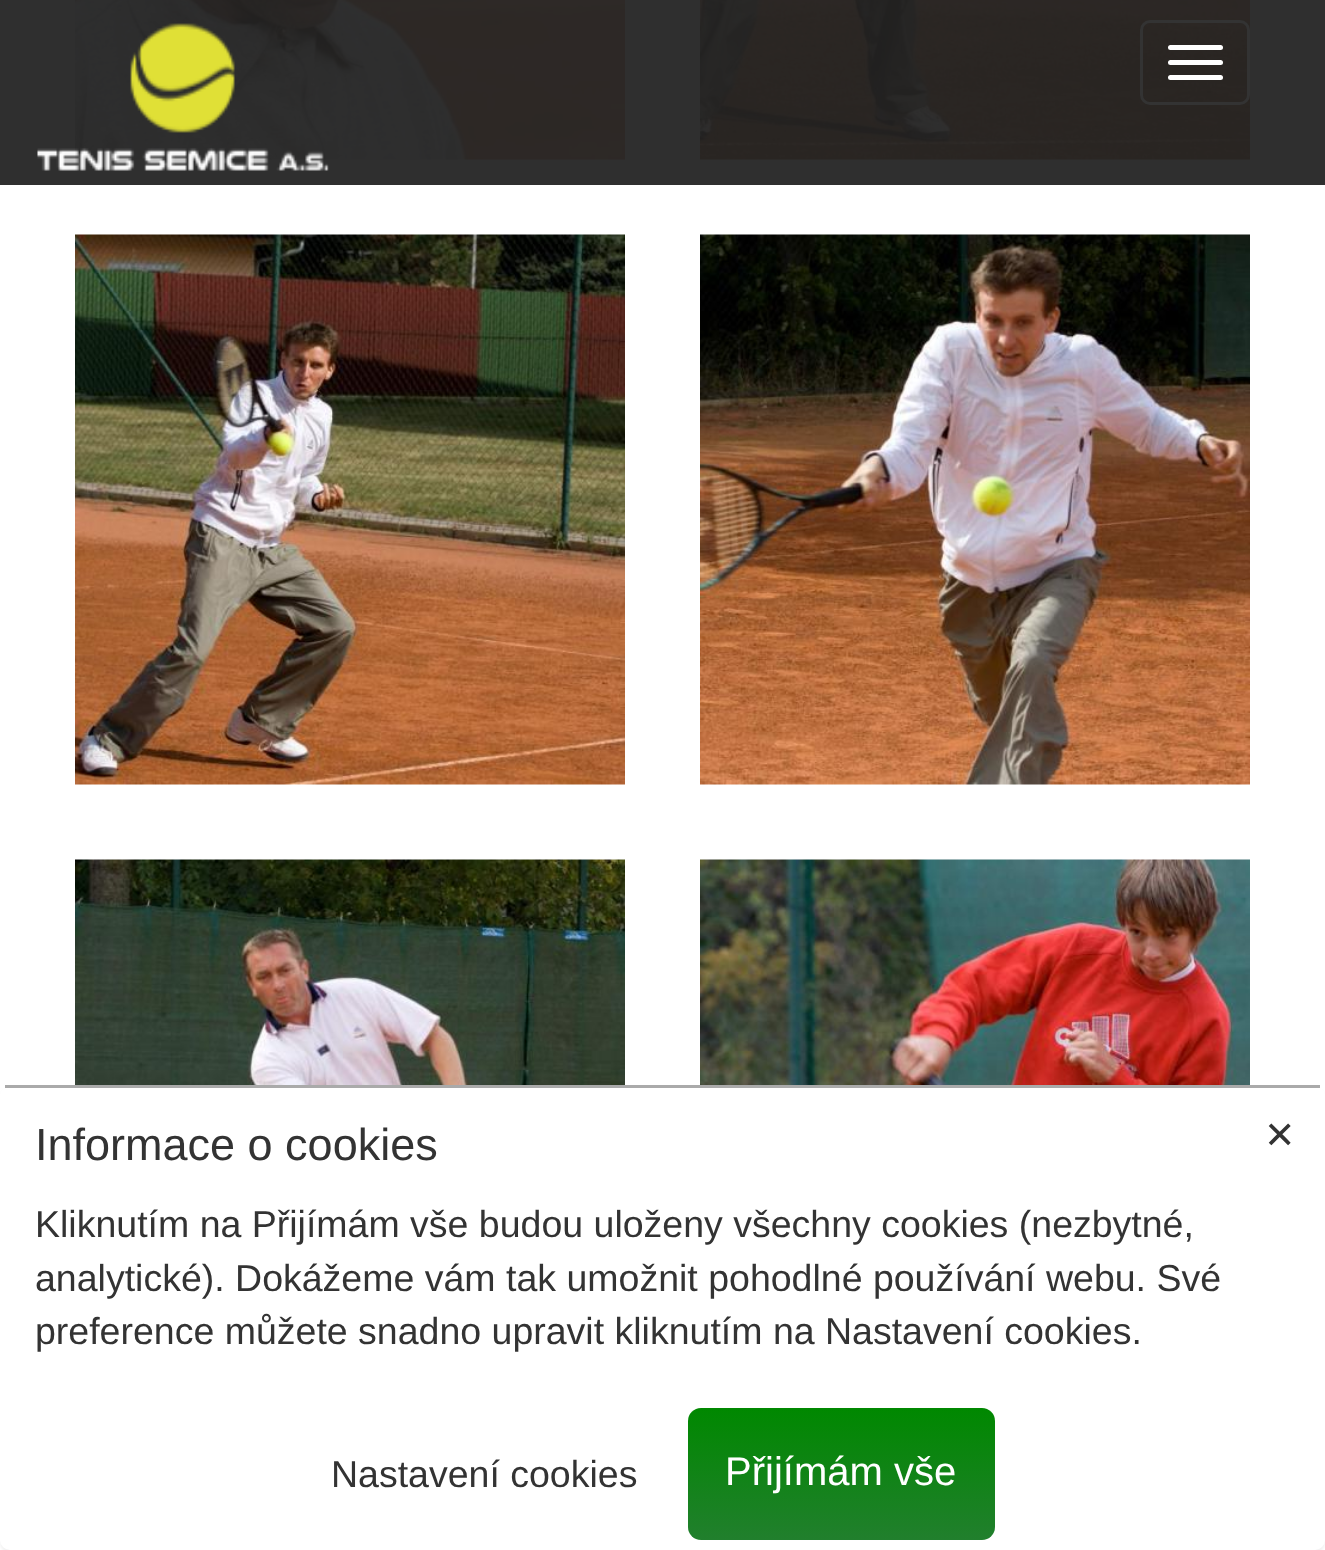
async function draw(canvas) {
	canvas.width = 1325;
	canvas.height = 1550;
	const c = canvas.getContext('2d');
	c.miterLimit = 4;
	c.fontKerning = 'normal';
	async function loadImage(src) {
		const img = new Image();
		img.src = src;
		await img.decode();
		return img;
	}
	let gradient;

	c.fillStyle = '#fff';
	c.fillRect(0, 0, 1325, 1550);
	c.fillStyle = '#2f2f2f';
	c.fillRect(0, 0, 1325, 185);
	c.drawImage(await loadImage('img1.png'), 75, 0, 550, 160);
	c.drawImage(await loadImage('img2.png'), 700, 0, 550, 160);
	c.drawImage(await loadImage('img3.png'), 75, 234, 550, 551);
	c.drawImage(await loadImage('img4.png'), 700, 234, 550, 551);
	c.drawImage(await loadImage('img5.png'), 75, 859, 550, 226);
	c.drawImage(await loadImage('img6.png'), 700, 859, 550, 226);
	c.drawImage(await loadImage('img7.png'), 37, 23, 292, 148);
	c.beginPath();
	c.roundRect(1141.5, 21.5, 107, 82, 8.5);
	c.strokeStyle = '#333';
	c.lineWidth = 3;
	c.stroke();
	c.fillStyle = '#fff';
	c.beginPath();
	c.roundRect(1168, 45, 55, 5, 2.5);
	c.fill();
	c.beginPath();
	c.roundRect(1168, 60, 55, 5, 2.5);
	c.fill();
	c.beginPath();
	c.roundRect(1168, 75, 55, 5, 2.5);
	c.fill();
	c.fillStyle = '#0000000d';
	c.filter = 'blur(1px)';
	c.beginPath();
	c.roundRect(0, 1088, 1325, 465, 10);
	c.fill();
	c.filter = 'none';
	c.fillStyle = '#fff';
	c.beginPath();
	c.roundRect(0, 1085, 1325, 465, 10);
	c.fill();
	c.fillStyle = '#aaa';
	c.fillRect(5, 1085, 1315, 3);
	c.font = '37.5px DejaVu Sans';
	c.fillStyle = '#333';
	c.fillText('✕', 1264, 1148);
	c.font = '37.5px Liberation Sans';
	c.fillText('Nastavení cookies', 331, 1487);
	gradient = c.createLinearGradient(841, 1408, 841, 1540);
	gradient.addColorStop(0, '#080');
	gradient.addColorStop(1, '#217f2d');
	c.fillStyle = gradient;
	c.beginPath();
	c.roundRect(688, 1408, 307, 132, 13);
	c.fill();
	c.font = '40px Liberation Sans';
	c.fillStyle = '#fff';
	c.fillText('Přijímám vše', 725, 1485);
	c.font = '45px Liberation Sans';
	c.fillStyle = '#333';
	c.fillText('Informace o cookies', 35, 1160);
	c.font = '37.5px Liberation Sans';
	for (const [text, x, y] of [
		['Kliknutím na Přijímám vše budou uloženy všechny cookies (nezbytné,', 35, 1237],
		['analytické). Dokážeme vám tak umožnit pohodlné používání webu. Své', 35, 1291],
		['preference můžete snadno upravit kliknutím na Nastavení cookies.', 35, 1344],
	]) {
		c.fillText(text, x, y);
	}
}

draw(document.querySelector('canvas'));
